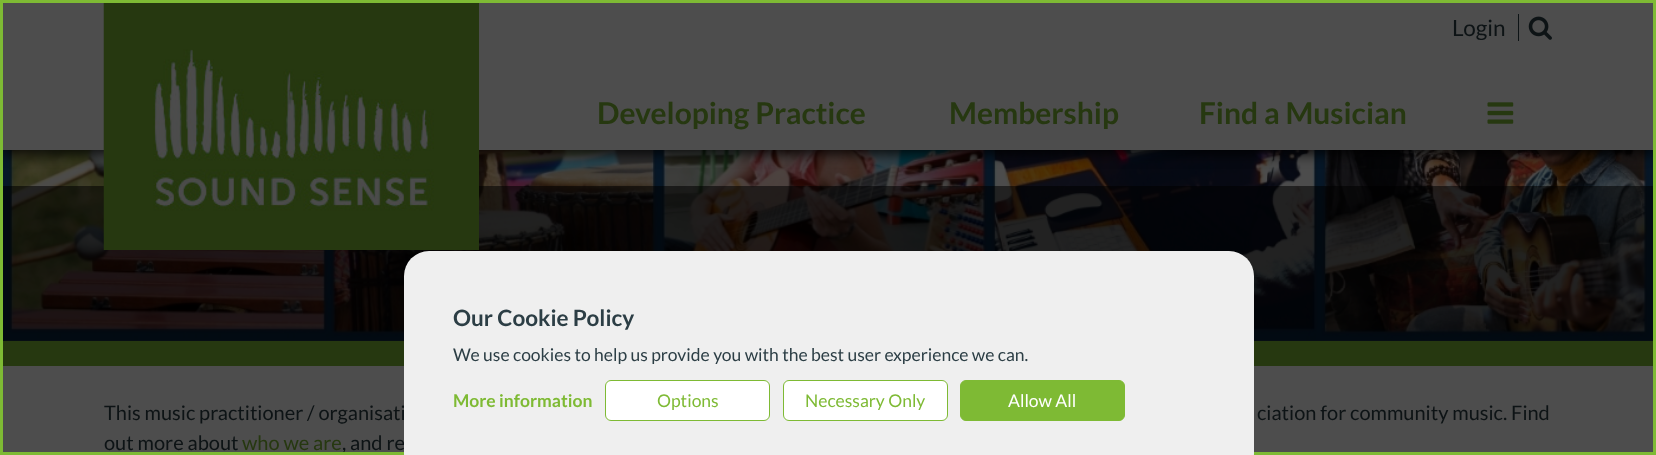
async function draw(canvas) {
	canvas.width = 1656;
	canvas.height = 455;
	const c = canvas.getContext('2d');
	c.miterLimit = 4;
	c.fontKerning = 'normal';
	async function loadImage(src) {
		const img = new Image();
		img.src = src;
		await img.decode();
		return img;
	}

	c.fillStyle = '#4d4d4d';
	c.fillRect(0, 0, 1656, 455);
	c.drawImage(await loadImage('img4.png'), 3, 150, 1650, 191);
	c.fillStyle = '#000000bf';
	c.filter = 'blur(6px)';
	c.beginPath();
	c.rect(3, 10, 1651, 145);
	c.fill();
	c.filter = 'none';
	for (const [x, y, w, h, color] of [
		[3, 3, 1650, 147, '#4d4d4d'],
		[3, 186, 1650, 155, '#0000008c'],
		[434, 3, 45, 247, '#263810'],
	]) {
		c.fillStyle = color;
		c.fillRect(x, y, w, h);
	}
	c.drawImage(await loadImage('img1.png'), 103, 3, 331, 247);
	c.font = '22.5px Lato';
	c.fillStyle = '#0d1315';
	c.fillText('Login', 1452, 36);
	c.fillRect(1518, 14, 1, 27);
	c.drawImage(await loadImage('img2.png'), 1528, 16, 24, 24);
	c.font = 'bold 30px Lato';
	c.fillStyle = '#263810';
	for (const [text, x, y] of [
		['Developing Practice', 597, 124],
		['Membership', 949, 124],
		['Find a Musician', 1199, 124],
	]) {
		c.fillText(text, x, y);
	}
	c.drawImage(await loadImage('img3.png'), 1487, 102, 27, 22);
	c.fillRect(3, 341, 1650, 25);
	c.font = '20px Lato';
	c.fillStyle = '#0d1315';
	for (const [text, x, y] of [
		['This music practitioner / organisati', 104, 420],
		['ciation for community music. Find', 1257, 420],
		['out more about', 104, 450],
	]) {
		c.fillText(text, x, y);
	}
	c.fillStyle = '#263810';
	c.fillText('who we are', 242, 450);
	c.fillStyle = '#0d1315';
	c.fillText(', and re', 342, 450);
	c.strokeStyle = '#7eba34';
	c.lineWidth = 3;
	c.strokeRect(1.5, 1.5, 1653, 452);
	c.fillStyle = '#efefef';
	c.beginPath();
	c.roundRect(404, 251, 850, 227, 25);
	c.fill();
	c.font = 'bold 22.5px Lato';
	c.fillStyle = '#2c3e45';
	c.fillText('Our Cookie Policy', 453, 326);
	c.font = '17.5px Lato';
	c.fillText('We use cookies to help us provide you with the best user experience we can.', 453, 361);
	c.font = 'bold 17.5px Lato';
	c.fillStyle = '#7eba34';
	c.fillText('More information', 453, 407);
	c.fillStyle = '#fff';
	c.beginPath();
	c.roundRect(605.5, 380.5, 164, 40, 5.5);
	c.fill();
	c.lineWidth = 1;
	c.stroke();
	c.font = '17.5px Lato';
	c.fillStyle = '#7eba34';
	c.fillText('Options', 657, 407);
	c.fillStyle = '#fff';
	c.beginPath();
	c.roundRect(783.5, 380.5, 164, 40, 5.5);
	c.fill();
	c.stroke();
	c.fillStyle = '#7eba34';
	c.fillText('Necessary Only', 805, 407);
	c.beginPath();
	c.roundRect(960.5, 380.5, 164, 40, 5.5);
	c.fill();
	c.stroke();
	c.fillStyle = '#fff';
	c.fillText('Allow All', 1008, 407);
}

draw(document.querySelector('canvas'));
